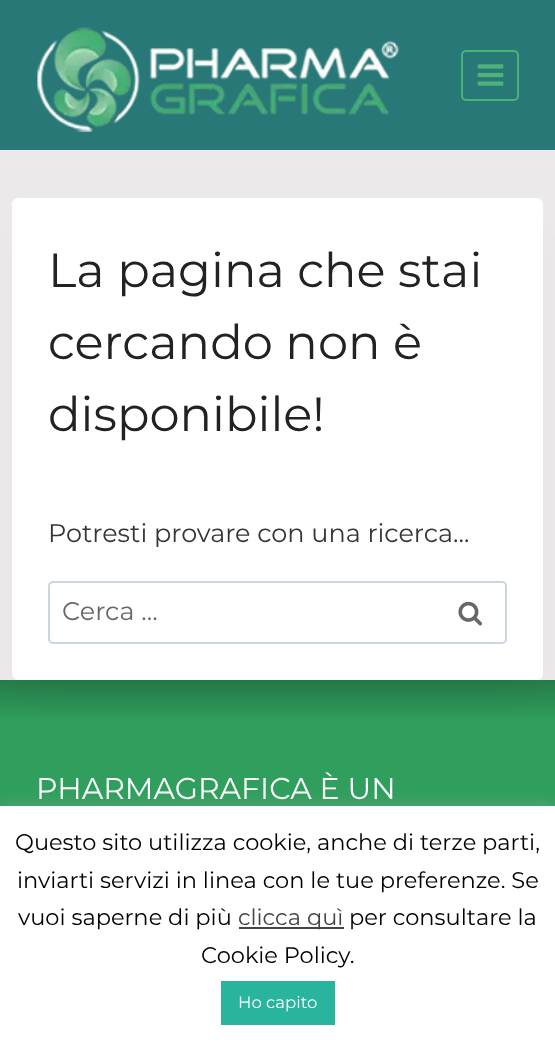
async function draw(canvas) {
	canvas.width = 555;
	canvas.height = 1049;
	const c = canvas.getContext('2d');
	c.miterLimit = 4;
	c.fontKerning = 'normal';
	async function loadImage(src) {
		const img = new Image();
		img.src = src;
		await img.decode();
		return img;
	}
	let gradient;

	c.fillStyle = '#ebe9e9';
	c.fillRect(0, 0, 555, 1049);
	c.fillStyle = '#287877';
	c.fillRect(0, 0, 555, 150);
	c.drawImage(await loadImage('img1.png'), 37, 27, 363, 105);
	c.beginPath();
	c.roundRect(462, 51, 56, 49, 4);
	c.strokeStyle = '#4db279';
	c.lineWidth = 2;
	c.stroke();
	c.drawImage(await loadImage('img2.png'), 477, 64, 27, 22);
	gradient = c.createLinearGradient(278, 680, 278, 722);
	gradient.addColorStop(0.02, '#267d4a');
	gradient.addColorStop(1, '#309f5d');
	c.fillStyle = gradient;
	c.fillRect(0, 680, 555, 42);
	c.fillStyle = '#309f5d';
	c.fillRect(0, 722, 555, 84);
	c.fillStyle = '#0000000d';
	c.filter = 'blur(19px)';
	c.beginPath();
	c.rect(27, 236, 501, 451);
	c.fill();
	c.filter = 'none';
	c.fillStyle = '#fff';
	c.beginPath();
	c.roundRect(12, 198, 531, 482, 6);
	c.fill();
	c.font = '48px Montserrat';
	c.fillStyle = '#222';
	for (const [text, x, y] of [
		['La pagina che stai', 48, 287],
		['cercando non è', 48, 359],
		['disponibile!', 48, 431],
	]) {
		c.fillText(text, x, y);
	}
	c.font = '25.5px Montserrat';
	c.fillStyle = '#353535';
	c.fillText('Potresti provare con una ricerca...', 48, 542);
	c.beginPath();
	c.roundRect(49, 582, 457, 61, 4);
	c.strokeStyle = '#cbd5e0';
	c.stroke();
	c.fillStyle = '#676767';
	c.fillText('Cerca …', 62, 620);
	c.drawImage(await loadImage('img3.png'), 458, 601, 25, 25);
	c.font = '30px Montserrat';
	c.fillStyle = '#fff';
	c.fillText('PHARMAGRAFICA È UN', 36, 799);
	c.fillStyle = '#acabab4d';
	c.filter = 'blur(7.5px)';
	c.beginPath();
	c.rect(0, 804, 555, 245);
	c.fill();
	c.filter = 'none';
	c.fillStyle = '#fff';
	c.fillRect(0, 806, 555, 243);
	c.font = '22.5px Montserrat';
	c.fillStyle = '#000';
	for (const [text, x, y] of [
		['Questo sito utilizza cookie, anche di terze parti,', 15, 850],
		['inviarti servizi in linea con le tue preferenze. Se', 17, 888],
		['vuoi saperne di più', 18, 925],
	]) {
		c.fillText(text, x, y);
	}
	c.fillStyle = '#444';
	c.fillRect(239, 927, 105, 2);
	c.fillText('clicca quì', 238, 925);
	c.fillStyle = '#000';
	c.fillText('per consultare la', 349, 925);
	c.fillText('Cookie Policy.', 201, 963);
	c.fillStyle = '#29b49e';
	c.fillRect(221, 981, 114, 44);
	c.font = '16.5px Montserrat';
	c.fillStyle = '#fff';
	c.fillText('Ho capito', 238, 1008);
}

draw(document.querySelector('canvas'));
